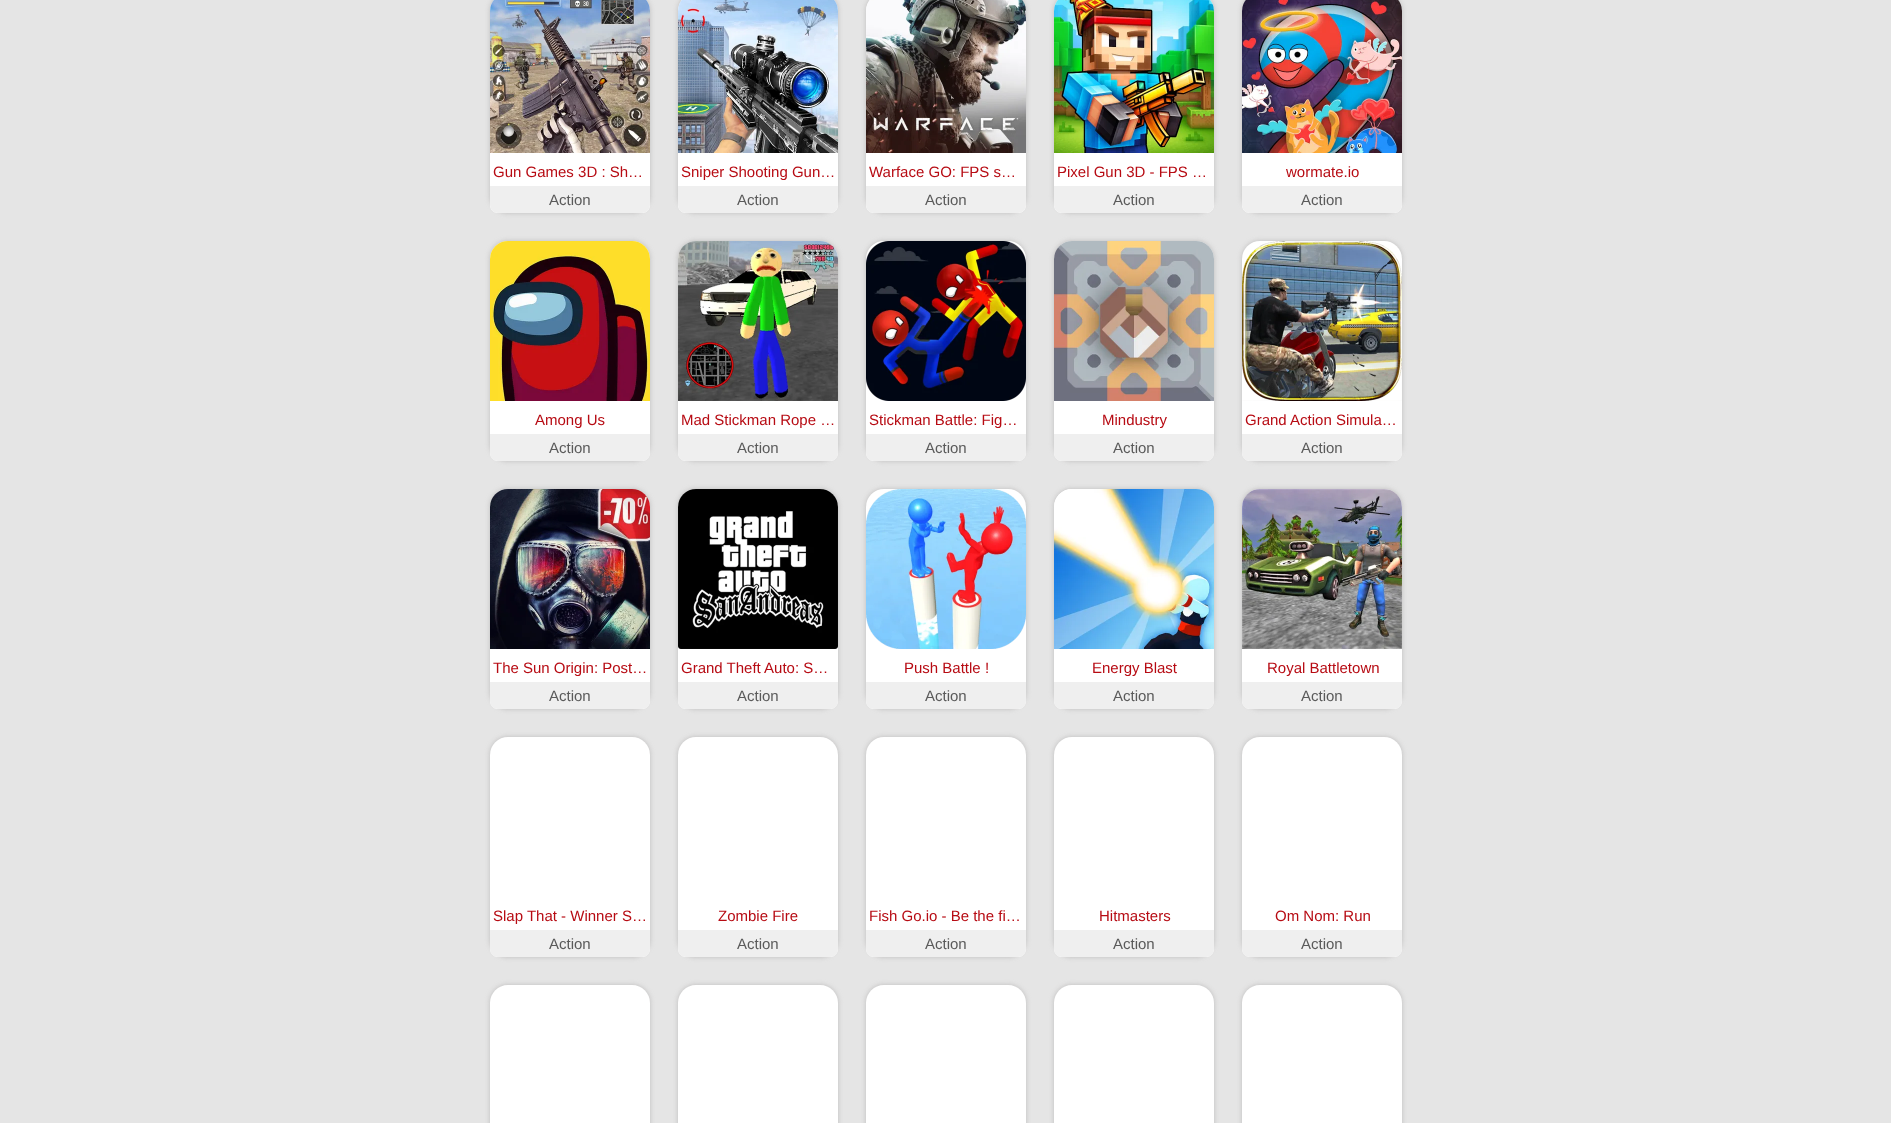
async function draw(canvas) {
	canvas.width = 1891;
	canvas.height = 1123;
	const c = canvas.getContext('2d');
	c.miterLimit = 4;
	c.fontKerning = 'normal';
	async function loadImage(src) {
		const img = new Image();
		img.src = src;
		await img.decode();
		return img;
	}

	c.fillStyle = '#e5e5e5';
	c.fillRect(0, 0, 1891, 1123);
	c.fillStyle = '#bdbcbc';
	c.filter = 'blur(2.5px)';
	c.beginPath();
	c.roundRect(490, -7, 160, 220, 18);
	c.fill();
	c.filter = 'none';
	c.fillStyle = '#fff';
	c.beginPath();
	c.moveTo(508, -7);
	c.lineTo(632, -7);
	c.bezierCurveTo(642, -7, 650, 1, 650, 11);
	c.lineTo(650, 205);
	c.bezierCurveTo(650, 209.5, 646.5, 213, 642, 213);
	c.lineTo(498, 213);
	c.bezierCurveTo(493.5, 213, 490, 209.5, 490, 205);
	c.lineTo(490, 11);
	c.bezierCurveTo(490, 1, 498, -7, 508, -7);
	c.closePath();
	c.fill();
	c.drawImage(await loadImage('img1.png'), 490, 0, 160, 153);
	c.font = '15px Liberation Sans';
	c.fillStyle = '#b70b13';
	c.fillText('Gun Games 3D : Sh…', 493, 177);
	c.fillStyle = '#efefef';
	c.beginPath();
	c.roundRect(490, 186, 160, 27, [0, 0, 8, 8]);
	c.fill();
	c.fillStyle = '#5a5a5a';
	c.fillText('Action', 549, 205);
	c.fillStyle = '#bdbcbc';
	c.filter = 'blur(2.5px)';
	c.beginPath();
	c.roundRect(678, -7, 160, 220, 18);
	c.fill();
	c.filter = 'none';
	c.fillStyle = '#fff';
	c.beginPath();
	c.moveTo(696, -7);
	c.lineTo(820, -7);
	c.bezierCurveTo(830, -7, 838, 1, 838, 11);
	c.lineTo(838, 205);
	c.bezierCurveTo(838, 209.5, 834.5, 213, 830, 213);
	c.lineTo(686, 213);
	c.bezierCurveTo(681.5, 213, 678, 209.5, 678, 205);
	c.lineTo(678, 11);
	c.bezierCurveTo(678, 1, 686, -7, 696, -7);
	c.closePath();
	c.fill();
	c.drawImage(await loadImage('img2.png'), 678, 0, 160, 153);
	c.fillStyle = '#b70b13';
	c.fillText('Sniper Shooting Gun…', 681, 177);
	c.fillStyle = '#efefef';
	c.beginPath();
	c.roundRect(678, 186, 160, 27, [0, 0, 8, 8]);
	c.fill();
	c.fillStyle = '#5a5a5a';
	c.fillText('Action', 737, 205);
	c.fillStyle = '#bdbcbc';
	c.filter = 'blur(2.5px)';
	c.beginPath();
	c.roundRect(866, -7, 160, 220, 18);
	c.fill();
	c.filter = 'none';
	c.fillStyle = '#fff';
	c.beginPath();
	c.moveTo(884, -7);
	c.lineTo(1008, -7);
	c.bezierCurveTo(1018, -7, 1026, 1, 1026, 11);
	c.lineTo(1026, 205);
	c.bezierCurveTo(1026, 209.5, 1022.5, 213, 1018, 213);
	c.lineTo(874, 213);
	c.bezierCurveTo(869.5, 213, 866, 209.5, 866, 205);
	c.lineTo(866, 11);
	c.bezierCurveTo(866, 1, 874, -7, 884, -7);
	c.closePath();
	c.fill();
	c.drawImage(await loadImage('img3.png'), 866, 0, 160, 153);
	c.fillStyle = '#b70b13';
	c.fillText('Warface GO: FPS s…', 869, 177);
	c.fillStyle = '#efefef';
	c.beginPath();
	c.roundRect(866, 186, 160, 27, [0, 0, 8, 8]);
	c.fill();
	c.fillStyle = '#5a5a5a';
	c.fillText('Action', 925, 205);
	c.fillStyle = '#bdbcbc';
	c.filter = 'blur(2.5px)';
	c.beginPath();
	c.roundRect(1054, -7, 160, 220, 18);
	c.fill();
	c.filter = 'none';
	c.fillStyle = '#fff';
	c.beginPath();
	c.moveTo(1072, -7);
	c.lineTo(1196, -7);
	c.bezierCurveTo(1206, -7, 1214, 1, 1214, 11);
	c.lineTo(1214, 205);
	c.bezierCurveTo(1214, 209.5, 1210.5, 213, 1206, 213);
	c.lineTo(1062, 213);
	c.bezierCurveTo(1057.5, 213, 1054, 209.5, 1054, 205);
	c.lineTo(1054, 11);
	c.bezierCurveTo(1054, 1, 1062, -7, 1072, -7);
	c.closePath();
	c.fill();
	c.drawImage(await loadImage('img4.png'), 1054, 0, 160, 153);
	c.fillStyle = '#b70b13';
	c.fillText('Pixel Gun 3D - FPS …', 1057, 177);
	c.fillStyle = '#efefef';
	c.beginPath();
	c.roundRect(1054, 186, 160, 27, [0, 0, 8, 8]);
	c.fill();
	c.fillStyle = '#5a5a5a';
	c.fillText('Action', 1113, 205);
	c.fillStyle = '#bdbcbc';
	c.filter = 'blur(2.5px)';
	c.beginPath();
	c.roundRect(1242, -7, 160, 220, 18);
	c.fill();
	c.filter = 'none';
	c.fillStyle = '#fff';
	c.beginPath();
	c.moveTo(1260, -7);
	c.lineTo(1384, -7);
	c.bezierCurveTo(1394, -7, 1402, 1, 1402, 11);
	c.lineTo(1402, 205);
	c.bezierCurveTo(1402, 209.5, 1398.5, 213, 1394, 213);
	c.lineTo(1250, 213);
	c.bezierCurveTo(1245.5, 213, 1242, 209.5, 1242, 205);
	c.lineTo(1242, 11);
	c.bezierCurveTo(1242, 1, 1250, -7, 1260, -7);
	c.closePath();
	c.fill();
	c.drawImage(await loadImage('img5.png'), 1242, 0, 160, 153);
	c.fillStyle = '#b70b13';
	c.fillText('wormate.io', 1286, 177);
	c.fillStyle = '#efefef';
	c.beginPath();
	c.roundRect(1242, 186, 160, 27, [0, 0, 8, 8]);
	c.fill();
	c.fillStyle = '#5a5a5a';
	c.fillText('Action', 1301, 205);
	c.fillStyle = '#bdbcbc';
	c.filter = 'blur(2.5px)';
	c.beginPath();
	c.roundRect(490, 241, 160, 220, 18);
	c.fill();
	c.filter = 'none';
	c.fillStyle = '#fff';
	c.beginPath();
	c.roundRect(490, 241, 160, 220, [18, 18, 8, 8]);
	c.fill();
	c.drawImage(await loadImage('img6.png'), 490, 241, 160, 160);
	c.fillStyle = '#b70b13';
	c.fillText('Among Us', 535, 425);
	c.fillStyle = '#efefef';
	c.beginPath();
	c.roundRect(490, 434, 160, 27, [0, 0, 8, 8]);
	c.fill();
	c.fillStyle = '#5a5a5a';
	c.fillText('Action', 549, 453);
	c.fillStyle = '#bdbcbc';
	c.filter = 'blur(2.5px)';
	c.beginPath();
	c.roundRect(678, 241, 160, 220, 18);
	c.fill();
	c.filter = 'none';
	c.fillStyle = '#fff';
	c.beginPath();
	c.roundRect(678, 241, 160, 220, [18, 18, 8, 8]);
	c.fill();
	c.drawImage(await loadImage('img7.png'), 678, 241, 160, 160);
	c.fillStyle = '#b70b13';
	c.fillText('Mad Stickman Rope …', 681, 425);
	c.fillStyle = '#efefef';
	c.beginPath();
	c.roundRect(678, 434, 160, 27, [0, 0, 8, 8]);
	c.fill();
	c.fillStyle = '#5a5a5a';
	c.fillText('Action', 737, 453);
	c.fillStyle = '#bdbcbc';
	c.filter = 'blur(2.5px)';
	c.beginPath();
	c.roundRect(866, 241, 160, 220, 18);
	c.fill();
	c.filter = 'none';
	c.fillStyle = '#fff';
	c.beginPath();
	c.roundRect(866, 241, 160, 220, [18, 18, 8, 8]);
	c.fill();
	c.drawImage(await loadImage('img8.png'), 866, 241, 160, 160);
	c.fillStyle = '#b70b13';
	c.fillText('Stickman Battle: Fig…', 869, 425);
	c.fillStyle = '#efefef';
	c.beginPath();
	c.roundRect(866, 434, 160, 27, [0, 0, 8, 8]);
	c.fill();
	c.fillStyle = '#5a5a5a';
	c.fillText('Action', 925, 453);
	c.fillStyle = '#bdbcbc';
	c.filter = 'blur(2.5px)';
	c.beginPath();
	c.roundRect(1054, 241, 160, 220, 18);
	c.fill();
	c.filter = 'none';
	c.fillStyle = '#fff';
	c.beginPath();
	c.roundRect(1054, 241, 160, 220, [18, 18, 8, 8]);
	c.fill();
	c.drawImage(await loadImage('img9.png'), 1054, 241, 160, 160);
	c.fillStyle = '#b70b13';
	c.fillText('Mindustry', 1102, 425);
	c.fillStyle = '#efefef';
	c.beginPath();
	c.roundRect(1054, 434, 160, 27, [0, 0, 8, 8]);
	c.fill();
	c.fillStyle = '#5a5a5a';
	c.fillText('Action', 1113, 453);
	c.fillStyle = '#bdbcbc';
	c.filter = 'blur(2.5px)';
	c.beginPath();
	c.roundRect(1242, 241, 160, 220, 18);
	c.fill();
	c.filter = 'none';
	c.fillStyle = '#fff';
	c.beginPath();
	c.roundRect(1242, 241, 160, 220, [18, 18, 8, 8]);
	c.fill();
	c.drawImage(await loadImage('img10.png'), 1242, 241, 160, 160);
	c.fillStyle = '#b70b13';
	c.fillText('Grand Action Simula…', 1245, 425);
	c.fillStyle = '#efefef';
	c.beginPath();
	c.roundRect(1242, 434, 160, 27, [0, 0, 8, 8]);
	c.fill();
	c.fillStyle = '#5a5a5a';
	c.fillText('Action', 1301, 453);
	c.fillStyle = '#bdbcbc';
	c.filter = 'blur(2.5px)';
	c.beginPath();
	c.roundRect(490, 489, 160, 220, 18);
	c.fill();
	c.filter = 'none';
	c.fillStyle = '#fff';
	c.beginPath();
	c.roundRect(490, 489, 160, 220, [18, 18, 8, 8]);
	c.fill();
	c.drawImage(await loadImage('img11.png'), 490, 489, 160, 160);
	c.fillStyle = '#b70b13';
	c.fillText('The Sun Origin: Post…', 493, 673);
	c.fillStyle = '#efefef';
	c.beginPath();
	c.roundRect(490, 682, 160, 27, [0, 0, 8, 8]);
	c.fill();
	c.fillStyle = '#5a5a5a';
	c.fillText('Action', 549, 701);
	c.fillStyle = '#bdbcbc';
	c.filter = 'blur(2.5px)';
	c.beginPath();
	c.roundRect(678, 489, 160, 220, 18);
	c.fill();
	c.filter = 'none';
	c.fillStyle = '#fff';
	c.beginPath();
	c.roundRect(678, 489, 160, 220, [18, 18, 8, 8]);
	c.fill();
	c.drawImage(await loadImage('img12.png'), 678, 489, 160, 160);
	c.fillStyle = '#b70b13';
	c.fillText('Grand Theft Auto: S…', 681, 673);
	c.fillStyle = '#efefef';
	c.beginPath();
	c.roundRect(678, 682, 160, 27, [0, 0, 8, 8]);
	c.fill();
	c.fillStyle = '#5a5a5a';
	c.fillText('Action', 737, 701);
	c.fillStyle = '#bdbcbc';
	c.filter = 'blur(2.5px)';
	c.beginPath();
	c.roundRect(866, 489, 160, 220, 18);
	c.fill();
	c.filter = 'none';
	c.fillStyle = '#fff';
	c.beginPath();
	c.roundRect(866, 489, 160, 220, [18, 18, 8, 8]);
	c.fill();
	c.drawImage(await loadImage('img13.png'), 866, 489, 160, 160);
	c.fillStyle = '#b70b13';
	c.fillText('Push Battle !', 904, 673);
	c.fillStyle = '#efefef';
	c.beginPath();
	c.roundRect(866, 682, 160, 27, [0, 0, 8, 8]);
	c.fill();
	c.fillStyle = '#5a5a5a';
	c.fillText('Action', 925, 701);
	c.fillStyle = '#bdbcbc';
	c.filter = 'blur(2.5px)';
	c.beginPath();
	c.roundRect(1054, 489, 160, 220, 18);
	c.fill();
	c.filter = 'none';
	c.fillStyle = '#fff';
	c.beginPath();
	c.roundRect(1054, 489, 160, 220, [18, 18, 8, 8]);
	c.fill();
	c.drawImage(await loadImage('img14.png'), 1054, 489, 160, 160);
	c.fillStyle = '#b70b13';
	c.fillText('Energy Blast', 1092, 673);
	c.fillStyle = '#efefef';
	c.beginPath();
	c.roundRect(1054, 682, 160, 27, [0, 0, 8, 8]);
	c.fill();
	c.fillStyle = '#5a5a5a';
	c.fillText('Action', 1113, 701);
	c.fillStyle = '#bdbcbc';
	c.filter = 'blur(2.5px)';
	c.beginPath();
	c.roundRect(1242, 489, 160, 220, 18);
	c.fill();
	c.filter = 'none';
	c.fillStyle = '#fff';
	c.beginPath();
	c.roundRect(1242, 489, 160, 220, [18, 18, 8, 8]);
	c.fill();
	c.drawImage(await loadImage('img15.png'), 1242, 489, 160, 160);
	c.fillStyle = '#b70b13';
	c.fillText('Royal Battletown', 1267, 673);
	c.fillStyle = '#efefef';
	c.beginPath();
	c.roundRect(1242, 682, 160, 27, [0, 0, 8, 8]);
	c.fill();
	c.fillStyle = '#5a5a5a';
	c.fillText('Action', 1301, 701);
	c.fillStyle = '#bdbcbc';
	c.filter = 'blur(2.5px)';
	c.beginPath();
	c.roundRect(490, 737, 160, 220, 18);
	c.fill();
	c.filter = 'none';
	c.fillStyle = '#fff';
	c.beginPath();
	c.roundRect(490, 737, 160, 220, [18, 18, 8, 8]);
	c.fill();
	c.fillStyle = '#b70b13';
	c.fillText('Slap That - Winner S…', 493, 921);
	c.fillStyle = '#efefef';
	c.beginPath();
	c.roundRect(490, 930, 160, 27, [0, 0, 8, 8]);
	c.fill();
	c.fillStyle = '#5a5a5a';
	c.fillText('Action', 549, 949);
	c.fillStyle = '#bdbcbc';
	c.filter = 'blur(2.5px)';
	c.beginPath();
	c.roundRect(678, 737, 160, 220, 18);
	c.fill();
	c.filter = 'none';
	c.fillStyle = '#fff';
	c.beginPath();
	c.roundRect(678, 737, 160, 220, [18, 18, 8, 8]);
	c.fill();
	c.fillStyle = '#b70b13';
	c.fillText('Zombie Fire', 718, 921);
	c.fillStyle = '#efefef';
	c.beginPath();
	c.roundRect(678, 930, 160, 27, [0, 0, 8, 8]);
	c.fill();
	c.fillStyle = '#5a5a5a';
	c.fillText('Action', 737, 949);
	c.fillStyle = '#bdbcbc';
	c.filter = 'blur(2.5px)';
	c.beginPath();
	c.roundRect(866, 737, 160, 220, 18);
	c.fill();
	c.filter = 'none';
	c.fillStyle = '#fff';
	c.beginPath();
	c.roundRect(866, 737, 160, 220, [18, 18, 8, 8]);
	c.fill();
	c.fillStyle = '#b70b13';
	c.fillText('Fish Go.io - Be the fi…', 869, 921);
	c.fillStyle = '#efefef';
	c.beginPath();
	c.roundRect(866, 930, 160, 27, [0, 0, 8, 8]);
	c.fill();
	c.fillStyle = '#5a5a5a';
	c.fillText('Action', 925, 949);
	c.fillStyle = '#bdbcbc';
	c.filter = 'blur(2.5px)';
	c.beginPath();
	c.roundRect(1054, 737, 160, 220, 18);
	c.fill();
	c.filter = 'none';
	c.fillStyle = '#fff';
	c.beginPath();
	c.roundRect(1054, 737, 160, 220, [18, 18, 8, 8]);
	c.fill();
	c.fillStyle = '#b70b13';
	c.fillText('Hitmasters', 1099, 921);
	c.fillStyle = '#efefef';
	c.beginPath();
	c.roundRect(1054, 930, 160, 27, [0, 0, 8, 8]);
	c.fill();
	c.fillStyle = '#5a5a5a';
	c.fillText('Action', 1113, 949);
	c.fillStyle = '#bdbcbc';
	c.filter = 'blur(2.5px)';
	c.beginPath();
	c.roundRect(1242, 737, 160, 220, 18);
	c.fill();
	c.filter = 'none';
	c.fillStyle = '#fff';
	c.beginPath();
	c.roundRect(1242, 737, 160, 220, [18, 18, 8, 8]);
	c.fill();
	c.fillStyle = '#b70b13';
	c.fillText('Om Nom: Run', 1275, 921);
	c.fillStyle = '#efefef';
	c.beginPath();
	c.roundRect(1242, 930, 160, 27, [0, 0, 8, 8]);
	c.fill();
	c.fillStyle = '#5a5a5a';
	c.fillText('Action', 1301, 949);
	c.fillStyle = '#bdbcbc';
	c.filter = 'blur(2.5px)';
	c.beginPath();
	c.roundRect(490, 985, 160, 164, 18);
	c.fill();
	c.filter = 'none';
	c.fillStyle = '#fff';
	c.beginPath();
	c.moveTo(508, 985);
	c.lineTo(632, 985);
	c.bezierCurveTo(642, 985, 650, 993, 650, 1003);
	c.lineTo(650, 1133);
	c.bezierCurveTo(650, 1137.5, 646.5, 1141, 642, 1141);
	c.lineTo(498, 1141);
	c.bezierCurveTo(493.5, 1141, 490, 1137.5, 490, 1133);
	c.lineTo(490, 1003);
	c.bezierCurveTo(490, 993, 498, 985, 508, 985);
	c.closePath();
	c.fill();
	c.fillStyle = '#bdbcbc';
	c.filter = 'blur(2.5px)';
	c.beginPath();
	c.roundRect(678, 985, 160, 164, 18);
	c.fill();
	c.filter = 'none';
	c.fillStyle = '#fff';
	c.beginPath();
	c.moveTo(696, 985);
	c.lineTo(820, 985);
	c.bezierCurveTo(830, 985, 838, 993, 838, 1003);
	c.lineTo(838, 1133);
	c.bezierCurveTo(838, 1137.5, 834.5, 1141, 830, 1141);
	c.lineTo(686, 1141);
	c.bezierCurveTo(681.5, 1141, 678, 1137.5, 678, 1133);
	c.lineTo(678, 1003);
	c.bezierCurveTo(678, 993, 686, 985, 696, 985);
	c.closePath();
	c.fill();
	c.fillStyle = '#bdbcbc';
	c.filter = 'blur(2.5px)';
	c.beginPath();
	c.roundRect(866, 985, 160, 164, 18);
	c.fill();
	c.filter = 'none';
	c.fillStyle = '#fff';
	c.beginPath();
	c.moveTo(884, 985);
	c.lineTo(1008, 985);
	c.bezierCurveTo(1018, 985, 1026, 993, 1026, 1003);
	c.lineTo(1026, 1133);
	c.bezierCurveTo(1026, 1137.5, 1022.5, 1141, 1018, 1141);
	c.lineTo(874, 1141);
	c.bezierCurveTo(869.5, 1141, 866, 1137.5, 866, 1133);
	c.lineTo(866, 1003);
	c.bezierCurveTo(866, 993, 874, 985, 884, 985);
	c.closePath();
	c.fill();
	c.fillStyle = '#bdbcbc';
	c.filter = 'blur(2.5px)';
	c.beginPath();
	c.roundRect(1054, 985, 160, 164, 18);
	c.fill();
	c.filter = 'none';
	c.fillStyle = '#fff';
	c.beginPath();
	c.moveTo(1072, 985);
	c.lineTo(1196, 985);
	c.bezierCurveTo(1206, 985, 1214, 993, 1214, 1003);
	c.lineTo(1214, 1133);
	c.bezierCurveTo(1214, 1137.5, 1210.5, 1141, 1206, 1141);
	c.lineTo(1062, 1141);
	c.bezierCurveTo(1057.5, 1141, 1054, 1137.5, 1054, 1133);
	c.lineTo(1054, 1003);
	c.bezierCurveTo(1054, 993, 1062, 985, 1072, 985);
	c.closePath();
	c.fill();
	c.fillStyle = '#bdbcbc';
	c.filter = 'blur(2.5px)';
	c.beginPath();
	c.roundRect(1242, 985, 160, 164, 18);
	c.fill();
	c.filter = 'none';
	c.fillStyle = '#fff';
	c.beginPath();
	c.moveTo(1260, 985);
	c.lineTo(1384, 985);
	c.bezierCurveTo(1394, 985, 1402, 993, 1402, 1003);
	c.lineTo(1402, 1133);
	c.bezierCurveTo(1402, 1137.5, 1398.5, 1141, 1394, 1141);
	c.lineTo(1250, 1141);
	c.bezierCurveTo(1245.5, 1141, 1242, 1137.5, 1242, 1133);
	c.lineTo(1242, 1003);
	c.bezierCurveTo(1242, 993, 1250, 985, 1260, 985);
	c.closePath();
	c.fill();
}

draw(document.querySelector('canvas'));
